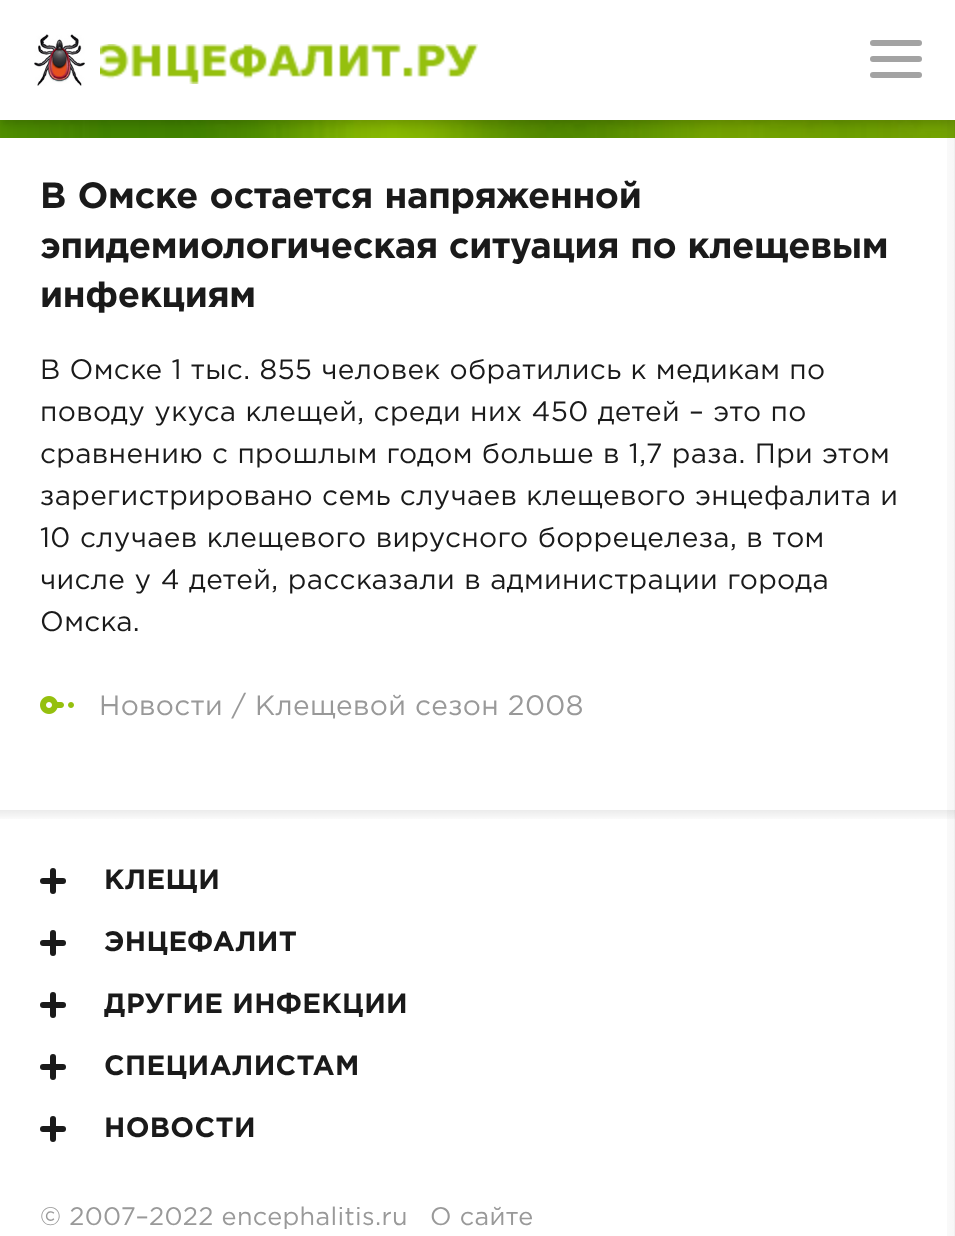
async function draw(canvas) {
	canvas.width = 955;
	canvas.height = 1236;
	const c = canvas.getContext('2d');
	c.miterLimit = 4;
	c.fontKerning = 'normal';
	async function loadImage(src) {
		const img = new Image();
		img.src = src;
		await img.decode();
		return img;
	}
	let gradient;

	c.fillStyle = '#fff';
	c.fillRect(0, 0, 955, 1236);
	c.drawImage(await loadImage('img3.png'), 0, 120, 955, 18);
	gradient = c.createLinearGradient(928, 585, 954, 585);
	gradient.addColorStop(0, '#00000000');
	gradient.addColorStop(1, '#00000008');
	c.fillStyle = gradient;
	c.fillRect(947, 120, 7, 1116);
	c.fillStyle = '#0000000f';
	c.fillRect(954, 120, 1, 1116);
	c.fillStyle = '#00000033';
	c.filter = 'blur(6px)';
	c.beginPath();
	c.rect(0, 4, 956, 120);
	c.fill();
	c.filter = 'none';
	c.fillStyle = '#fff';
	c.fillRect(0, 0, 955, 120);
	c.drawImage(await loadImage('img1.png'), 34, 34, 51, 52);
	c.drawImage(await loadImage('img2.png'), 100, 44, 378, 40);
	c.fillStyle = '#a3a3a3';
	c.beginPath();
	c.roundRect(870, 40, 52, 6, 3);
	c.fill();
	c.beginPath();
	c.roundRect(870, 56, 52, 6, 3);
	c.fill();
	c.beginPath();
	c.roundRect(870, 72, 52, 6, 3);
	c.fill();
	c.letterSpacing = '-0.35px';
	c.wordSpacing = '1px';
	c.font = 'bold 36.4px Gotham';
	c.fillStyle = '#1a1a1a';
	c.fillText('В Омске остается напряженной', 40, 208);
	c.wordSpacing = '0.5px';
	c.fillText('эпидемиологическая ситуация по клещевым', 40, 258);
	c.wordSpacing = '0px';
	c.fillText('инфекциям', 40, 307);
	c.letterSpacing = '0.35px';
	c.wordSpacing = '0.25px';
	c.font = '28px Gotham';
	c.fillText('В Омске 1 тыс. 855 человек обратились к медикам по', 40, 379);
	c.wordSpacing = '0.4px';
	c.fillText('поводу укуса клещей, среди них 450 детей – это по', 40, 421);
	c.wordSpacing = '0.25px';
	c.fillText('сравнению с прошлым годом больше в 1,7 раза. При этом', 40, 463);
	c.fillText('зарегистрировано семь случаев клещевого энцефалита и', 40, 505);
	c.wordSpacing = '0.5px';
	c.fillText('10 случаев клещевого вирусного боррецелеза, в том', 40, 547);
	c.fillText('числе у 4 детей, рассказали в администрации города', 40, 589);
	c.wordSpacing = '0px';
	c.fillText('Омска.', 40, 631);
	c.drawImage(await loadImage('img4.png'), 40, 696, 34, 18);
	c.fillStyle = '#999';
	c.fillText('Новости / Клещевой сезон 2008', 99, 715);
	gradient = c.createLinearGradient(478, 822, 478, 810);
	gradient.addColorStop(0, '#00000000');
	gradient.addColorStop(1, '#00000014');
	c.fillStyle = gradient;
	c.fillRect(0, 810, 955, 9);
	c.fillStyle = '#1a1a1a';
	c.beginPath();
	c.roundRect(40, 878, 26, 6, 3);
	c.fill();
	c.beginPath();
	c.roundRect(50, 868, 6, 26, 3);
	c.fill();
	c.font = 'bold 28px Gotham';
	c.fillText('КЛЕЩИ', 104, 889);
	c.beginPath();
	c.roundRect(40, 940, 26, 6, 3);
	c.fill();
	c.beginPath();
	c.roundRect(50, 930, 6, 26, 3);
	c.fill();
	c.fillText('ЭНЦЕФАЛИТ', 104, 951);
	c.beginPath();
	c.roundRect(40, 1002, 26, 6, 3);
	c.fill();
	c.beginPath();
	c.roundRect(50, 992, 6, 26, 3);
	c.fill();
	c.fillText('ДРУГИЕ ИНФЕКЦИИ', 104, 1013);
	c.beginPath();
	c.roundRect(40, 1064, 26, 6, 3);
	c.fill();
	c.beginPath();
	c.roundRect(50, 1054, 6, 26, 3);
	c.fill();
	c.fillText('СПЕЦИАЛИСТАМ', 104, 1075);
	c.beginPath();
	c.roundRect(40, 1126, 26, 6, 3);
	c.fill();
	c.beginPath();
	c.roundRect(50, 1116, 6, 26, 3);
	c.fill();
	c.fillText('НОВОСТИ', 104, 1137);
	c.font = '25.25px Gotham';
	c.fillStyle = '#999';
	c.fillText('© 2007–2022 encephalitis.ru', 40, 1225);
	c.fillText('О сайте', 430, 1225);
}

draw(document.querySelector('canvas'));
